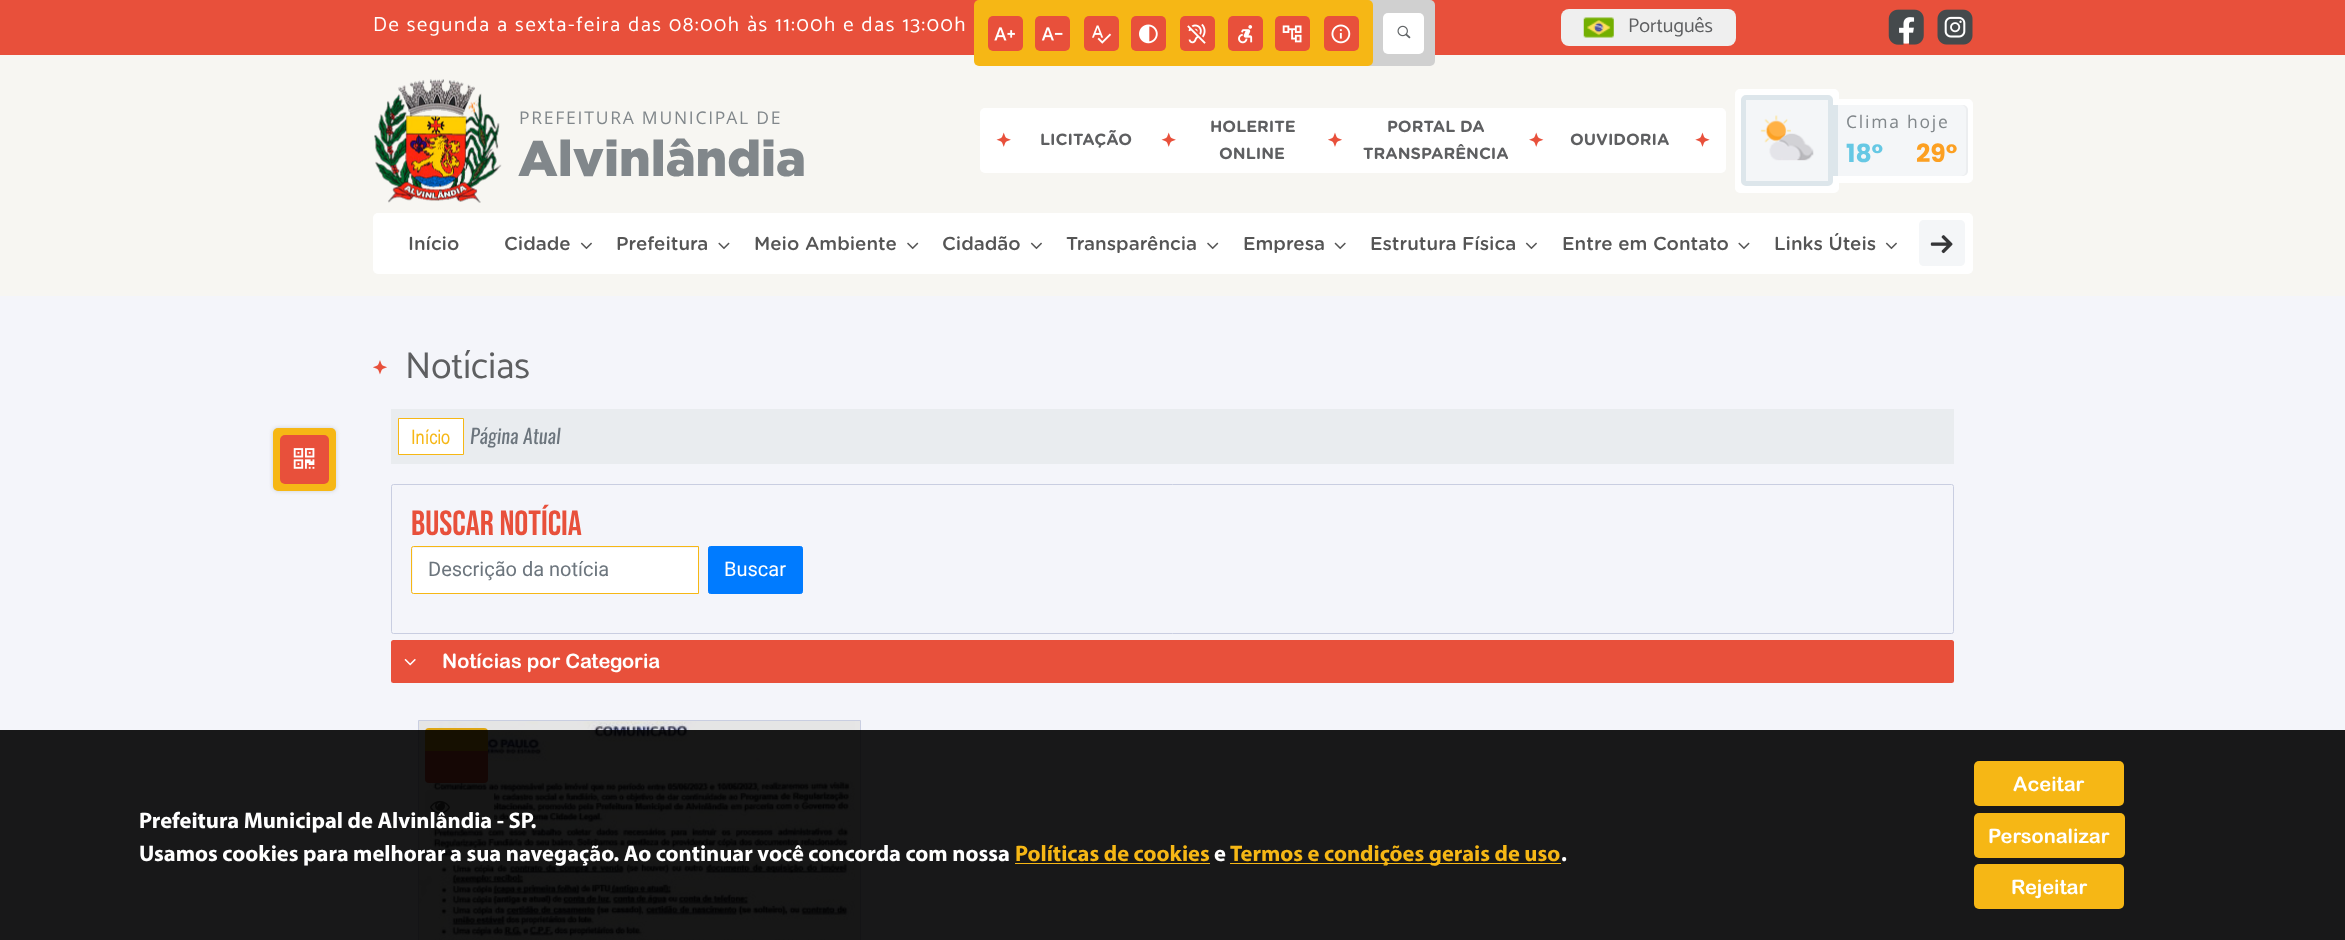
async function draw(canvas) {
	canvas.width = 2345;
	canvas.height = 940;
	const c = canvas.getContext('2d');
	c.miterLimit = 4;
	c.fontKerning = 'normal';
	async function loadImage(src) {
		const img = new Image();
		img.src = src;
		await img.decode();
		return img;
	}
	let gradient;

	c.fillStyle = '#f7f6f2';
	c.fillRect(0, 0, 2345, 940);
	c.fillStyle = '#e8503b';
	c.fillRect(0, 0, 2345, 55);
	c.fillStyle = '#d0d0d0';
	c.beginPath();
	c.roundRect(1038, 0, 397, 66, 5);
	c.fill();
	c.fillStyle = '#f6b715';
	c.beginPath();
	c.roundRect(974, 0, 399, 66, 5);
	c.fill();
	c.save();
	c.beginPath();
	c.roundRect(988, 16, 35, 35, 4);
	c.clip();
	c.fillStyle = '#e8503b';
	c.beginPath();
	c.roundRect(988, 16, 35, 35, 5);
	c.fill();
	c.restore();
	c.drawImage(await loadImage('img1.png'), 994, 27, 21, 14);
	c.save();
	c.beginPath();
	c.roundRect(1035, 16, 35, 35, 4);
	c.clip();
	c.fillStyle = '#e8503b';
	c.beginPath();
	c.roundRect(1035, 16, 35, 35, 5);
	c.fill();
	c.restore();
	c.drawImage(await loadImage('img2.png'), 1041, 27, 22, 14);
	c.save();
	c.beginPath();
	c.roundRect(1084, 16, 35, 35, 4);
	c.clip();
	c.fillStyle = '#e8503b';
	c.beginPath();
	c.roundRect(1084, 16, 35, 35, 5);
	c.fill();
	c.restore();
	c.drawImage(await loadImage('img3.png'), 1092, 25, 20, 19);
	c.save();
	c.beginPath();
	c.roundRect(1131, 16, 35, 35, 4);
	c.clip();
	c.fillStyle = '#e8503b';
	c.beginPath();
	c.roundRect(1131, 16, 35, 35, 5);
	c.fill();
	c.restore();
	c.drawImage(await loadImage('img4.png'), 1139, 24, 19, 20);
	c.save();
	c.beginPath();
	c.roundRect(1180, 16, 35, 35, 4);
	c.clip();
	c.fillStyle = '#e8503b';
	c.beginPath();
	c.roundRect(1180, 16, 35, 35, 5);
	c.fill();
	c.restore();
	c.drawImage(await loadImage('img5.png'), 1187, 23, 19, 21);
	c.save();
	c.beginPath();
	c.roundRect(1228, 16, 35, 35, 4);
	c.clip();
	c.fillStyle = '#e8503b';
	c.beginPath();
	c.roundRect(1228, 16, 35, 35, 5);
	c.fill();
	c.restore();
	c.drawImage(await loadImage('img6.png'), 1238, 25, 15, 19);
	c.save();
	c.beginPath();
	c.roundRect(1275, 16, 35, 35, 4);
	c.clip();
	c.fillStyle = '#e8503b';
	c.beginPath();
	c.roundRect(1275, 16, 35, 35, 5);
	c.fill();
	c.restore();
	c.drawImage(await loadImage('img7.png'), 1282, 25, 20, 18);
	c.save();
	c.beginPath();
	c.roundRect(1324, 16, 35, 35, 4);
	c.clip();
	c.fillStyle = '#e8503b';
	c.beginPath();
	c.roundRect(1324, 16, 35, 35, 5);
	c.fill();
	c.restore();
	c.drawImage(await loadImage('img8.png'), 1331, 24, 20, 20);
	c.letterSpacing = '1.62px';
	c.font = '20.6px Catamaran';
	c.fillStyle = '#fff';
	c.fillText('De segunda a sexta-feira das 08:00h às 11:00h e das 13:00h', 373, 31);
	c.beginPath();
	c.roundRect(1383, 13, 41, 41, 5);
	c.fill();
	c.drawImage(await loadImage('img9.png'), 1397, 25, 14, 14);
	c.fillStyle = '#efefef';
	c.beginPath();
	c.roundRect(1561, 9, 175, 37, 8);
	c.fill();
	c.drawImage(await loadImage('img10.png'), 1583, 17, 31, 21);
	c.letterSpacing = '0px';
	c.font = '20px Catamaran';
	c.fillStyle = '#5e5f61';
	c.fillText('Português', 1628, 32);
	gradient = c.createRadialGradient(1906, 28, 0, 1906, 28, 25);
	gradient.addColorStop(0.6, '#fff');
	gradient.addColorStop(0.65, '#e8503b');
	c.fillStyle = gradient;
	c.beginPath();
	c.roundRect(1889, 10, 35, 35, 5);
	c.fill();
	c.drawImage(await loadImage('img11.png'), 1888, 9, 36, 36);
	gradient = c.createRadialGradient(1955, 28, 0, 1955, 28, 25);
	gradient.addColorStop(0.6, '#fff');
	gradient.addColorStop(0.65, '#e8503b');
	c.fillStyle = gradient;
	c.beginPath();
	c.roundRect(1938, 10, 35, 35, 5);
	c.fill();
	c.drawImage(await loadImage('img12.png'), 1937, 9, 36, 36);
	c.drawImage(await loadImage('img13.png'), 374, 79, 128, 124);
	c.letterSpacing = '1.75px';
	c.font = '17.5px Open Sans';
	c.fillStyle = '#81878b';
	c.fillText('PREFEITURA MUNICIPAL DE', 519, 124);
	c.letterSpacing = '0px';
	c.font = '900 50px Gotham';
	c.fillText('Alvinlândia', 518, 176);
	c.fillStyle = '#fff';
	c.beginPath();
	c.roundRect(980, 108, 746, 65, 5);
	c.fill();
	c.drawImage(await loadImage('img14.png'), 996, 132, 15, 15);
	c.font = 'bold 16.25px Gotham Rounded';
	c.fillStyle = '#5e5f61';
	c.fillText('LICITAÇÃO', 1040, 145);
	c.drawImage(await loadImage('img14.png'), 1161, 132, 15, 15);
	c.fillText('HOLERITE', 1210, 132);
	c.fillText('ONLINE', 1219, 159);
	c.drawImage(await loadImage('img15.png'), 1328, 132, 14, 15);
	c.fillText('PORTAL DA', 1387, 132);
	c.fillText('TRANSPARÊNCIA', 1363, 159);
	c.drawImage(await loadImage('img16.png'), 1529, 132, 15, 15);
	c.fillText('OUVIDORIA', 1570, 145);
	c.drawImage(await loadImage('img17.png'), 1695, 132, 15, 15);
	c.fillStyle = '#fff';
	c.beginPath();
	c.roundRect(1738, 92, 98, 98, 2);
	c.fill();
	c.strokeStyle = '#fff';
	c.lineWidth = 6;
	c.stroke();
	c.fillStyle = '#f4f6f8';
	c.beginPath();
	c.roundRect(1743.5, 97.5, 87, 86, 2.5);
	c.fill();
	c.strokeStyle = '#dde6eb';
	c.lineWidth = 5;
	c.stroke();
	c.drawImage(await loadImage('img18.png'), 1760, 115, 54, 46);
	c.fillStyle = '#fff';
	c.beginPath();
	c.roundRect(1842, 102, 128, 78, [0, 2, 2, 0]);
	c.fill();
	c.strokeStyle = '#fff';
	c.lineWidth = 6;
	c.stroke();
	c.fillStyle = '#eceef0';
	c.filter = 'blur(0.5px)';
	c.beginPath();
	c.roundRect(1834, 105, 134, 71, 5);
	c.fill();
	c.filter = 'none';
	c.fillStyle = '#f4f6f8';
	c.beginPath();
	c.roundRect(1833, 105, 133, 71, [0, 5, 5, 0]);
	c.fill();
	c.fillStyle = '#dde6eb';
	c.fillRect(1833, 105, 5, 71);
	c.letterSpacing = '1.75px';
	c.font = '17.5px Open Sans';
	c.fillStyle = '#81878b';
	c.fillText('Clima hoje', 1846, 128);
	c.letterSpacing = '0px';
	c.font = 'bold 25px Poppins';
	c.fillStyle = '#66c8e4';
	c.fillText('18°', 1846, 162);
	c.fillStyle = '#fca022';
	c.fillText('29°', 1916, 162);
	c.fillStyle = '#fff';
	c.beginPath();
	c.roundRect(373, 213, 1600, 61, 5);
	c.fill();
	c.font = '500 18.75px Gotham Rounded';
	c.fillStyle = '#555';
	c.fillText('Início', 408, 250);
	c.fillText('Cidade', 504, 250);
	c.drawImage(await loadImage('img19.png'), 580, 242, 12, 8);
	c.fillText('Prefeitura', 616, 250);
	c.drawImage(await loadImage('img20.png'), 718, 242, 12, 8);
	c.fillText('Meio Ambiente', 754, 250);
	c.drawImage(await loadImage('img21.png'), 907, 242, 12, 8);
	c.fillText('Cidadão', 942, 250);
	c.drawImage(await loadImage('img19.png'), 1030, 242, 12, 8);
	c.fillText('Transparência', 1066, 250);
	c.drawImage(await loadImage('img21.png'), 1207, 242, 12, 8);
	c.fillText('Empresa', 1243, 250);
	c.drawImage(await loadImage('img22.png'), 1334, 242, 12, 8);
	c.fillText('Estrutura Física', 1370, 250);
	c.drawImage(await loadImage('img19.png'), 1525, 242, 12, 8);
	c.fillText('Entre em Contato', 1562, 250);
	c.drawImage(await loadImage('img20.png'), 1738, 242, 12, 8);
	c.fillText('Links Úteis', 1774, 250);
	c.drawImage(await loadImage('img19.png'), 1885, 242, 12, 8);
	c.fillStyle = '#f4f6f8';
	c.beginPath();
	c.moveTo(1960, 266);
	c.lineTo(1924, 266);
	c.bezierCurveTo(1921, 266, 1919, 264, 1919, 261);
	c.lineTo(1919, 225);
	c.bezierCurveTo(1919, 222, 1921, 220, 1924, 220);
	c.lineTo(1960, 220);
	c.bezierCurveTo(1963, 220, 1965, 222, 1965, 225);
	c.lineTo(1965, 261);
	c.bezierCurveTo(1965, 264, 1963, 266, 1960, 266);
	c.closePath();
	c.fill();
	c.drawImage(await loadImage('img23.png'), 1930, 235, 23, 19);
	c.fillStyle = '#f4f5fa';
	c.fillRect(0, 296, 2345, 644);
	c.drawImage(await loadImage('img24.png'), 373, 360, 14, 15);
	c.font = '37.5px Catamaran';
	c.fillStyle = '#5e5f61';
	c.fillText('Notícias', 405, 378);
	c.fillStyle = '#e9ecef';
	c.fillRect(391, 409, 1563, 55);
	c.fillStyle = '#fff';
	c.beginPath();
	c.rect(398.5, 418.5, 65, 36);
	c.fill();
	c.strokeStyle = '#f6b715';
	c.lineWidth = 1;
	c.stroke();
	c.font = '20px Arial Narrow';
	c.fillStyle = '#f6b715';
	c.fillText('Início', 411, 444);
	c.font = 'italic 20px Oswald';
	c.fillStyle = '#6c757d';
	c.fillText('Página Atual', 470, 444);
	c.beginPath();
	c.roundRect(391.5, 484.5, 1562, 149, 2);
	c.strokeStyle = '#c9cee1';
	c.stroke();
	c.font = '35px Bebas Neue';
	c.fillStyle = '#e8503b';
	c.fillText('Buscar Notícia', 411, 535);
	c.fillStyle = '#fff';
	c.beginPath();
	c.roundRect(413, 548, 285, 45, [1, 0, 0, 1]);
	c.fill();
	c.beginPath();
	c.roundRect(411.5, 546.5, 287, 47, [2, 0, 0, 2]);
	c.strokeStyle = '#f6b715';
	c.stroke();
	c.font = '20px Roboto';
	c.fillStyle = '#6c757d';
	c.fillText('Descrição da notícia', 428, 576);
	c.fillStyle = '#007bff';
	c.beginPath();
	c.roundRect(708.5, 546.5, 94, 47, 2);
	c.fill();
	c.strokeStyle = '#007bff';
	c.stroke();
	c.fillStyle = '#fff';
	c.fillText('Buscar', 724, 576);
	c.fillStyle = '#e8503b';
	c.beginPath();
	c.roundRect(391, 640, 1563, 43, 2.5);
	c.fill();
	c.drawImage(await loadImage('img25.png'), 404, 658, 12, 8);
	c.font = 'bold 20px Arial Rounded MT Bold';
	c.fillStyle = '#fff';
	c.fillText('Notícias por Categoria', 442, 668);
	c.fillStyle = '#e6e6e6';
	c.beginPath();
	c.rect(418.5, 720.5, 442, 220);
	c.fill();
	c.strokeStyle = '#c9cee1';
	c.stroke();
	c.drawImage(await loadImage('img26.png'), 419, 721, 436, 219);
	c.fillStyle = '#dda513';
	c.beginPath();
	c.roundRect(425, 728, 63, 23, [4, 4, 0, 0]);
	c.fill();
	c.fillStyle = '#d14835';
	c.beginPath();
	c.roundRect(425, 751, 63, 32, [0, 0, 4, 4]);
	c.fill();
	c.fillStyle = '#dedede';
	c.beginPath();
	c.roundRect(425, 790, 69, 34, 4);
	c.fill();
	c.drawImage(await loadImage('img27.png'), 430, 800, 20, 14);
	c.fillStyle = '#000000e6';
	c.fillRect(0, 730, 2345, 210);
	c.font = 'bold 22.5px Myriad';
	c.fillStyle = '#fff';
	c.fillText('Prefeitura Municipal de Alvinlândia - SP.', 139, 828);
	c.fillText('Usamos cookies para melhorar a sua navegação. Ao continuar você concorda com nossa', 139, 861);
	c.fillStyle = '#f6b715';
	c.fillText('Políticas de cookies', 1015, 861);
	c.fillRect(1015, 863, 195, 1);
	c.fillStyle = '#fff';
	c.fillText('e', 1214, 861);
	c.fillStyle = '#f6b715';
	c.fillRect(1230, 863, 331, 1);
	c.fillText('Termos e condições gerais de uso', 1230, 861);
	c.fillStyle = '#fff';
	c.fillText('.', 1561, 861);
	c.fillStyle = '#f6b715';
	c.beginPath();
	c.roundRect(1974, 761, 150, 45, 5);
	c.fill();
	c.font = 'bold 20px Arial Rounded MT Bold';
	c.fillStyle = '#fff';
	c.fillText('Aceitar', 2013, 791);
	c.fillStyle = '#f6b715';
	c.beginPath();
	c.roundRect(1974, 813, 151, 45, 5);
	c.fill();
	c.fillStyle = '#fff';
	c.fillText('Personalizar', 1988, 843);
	c.fillStyle = '#f6b715';
	c.beginPath();
	c.roundRect(1974, 864, 150, 45, 5);
	c.fill();
	c.fillStyle = '#fff';
	c.fillText('Rejeitar', 2011, 894);
	c.fillStyle = '#cbd0d6';
	c.filter = 'blur(2px)';
	c.beginPath();
	c.roundRect(273, 428, 63, 63, 5);
	c.fill();
	c.filter = 'none';
	c.fillStyle = '#f6b715';
	c.beginPath();
	c.roundRect(273, 428, 63, 63, 5);
	c.fill();
	c.fillStyle = '#e8503b';
	c.beginPath();
	c.roundRect(280, 435, 49, 49, 5);
	c.fill();
	c.drawImage(await loadImage('img28.png'), 293, 448, 22, 21);
}

draw(document.querySelector('canvas'));
